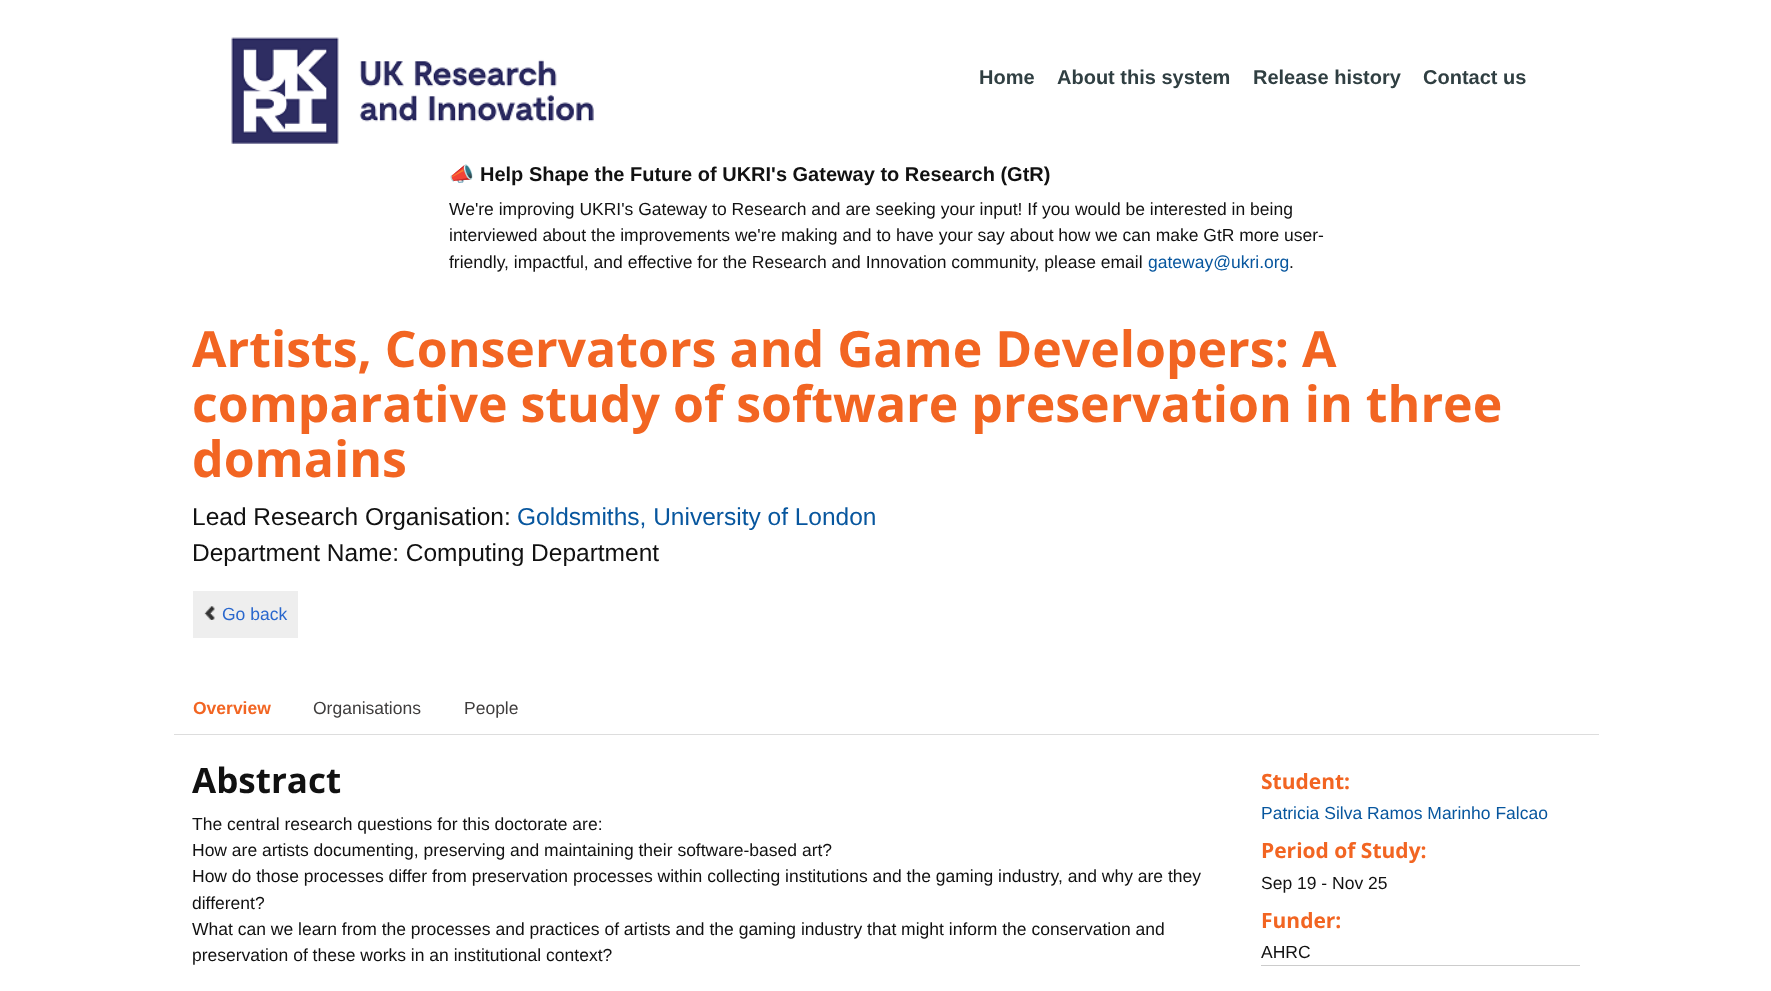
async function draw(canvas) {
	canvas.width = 1771;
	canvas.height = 991;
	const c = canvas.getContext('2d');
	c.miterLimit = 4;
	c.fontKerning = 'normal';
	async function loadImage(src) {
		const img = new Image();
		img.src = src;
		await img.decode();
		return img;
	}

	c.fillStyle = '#fff';
	c.fillRect(0, 0, 1771, 991);
	c.drawImage(await loadImage('img1.png'), 231, 37, 363, 107);
	c.font = 'bold 20px Liberation Sans';
	c.fillStyle = '#303f42';
	for (const [text, x, y] of [
		['Home', 979, 84],
		['About this system', 1057, 84],
		['Release history', 1253, 84],
		['Contact us', 1423, 84],
	]) {
		c.fillText(text, x, y);
	}
	c.font = 'bold 20px Noto Color Emoji';
	c.fillStyle = '#111';
	c.fillText('📣', 449, 181);
	c.font = 'bold 20px Liberation Sans';
	c.fillText('Help Shape the Future of UKRI\'s Gateway to Research (GtR)', 480, 181);
	c.font = '17.5px Liberation Sans';
	for (const [text, x, y] of [
		['We\'re improving UKRI\'s Gateway to Research and are seeking your input! If you would be interested in being', 449, 215],
		['interviewed about the improvements we\'re making and to have your say about how we can make GtR more user-', 449, 241],
		['friendly, impactful, and effective for the Research and Innovation community, please email', 449, 268],
	]) {
		c.fillText(text, x, y);
	}
	c.fillStyle = '#07569e';
	c.fillText('gateway@ukri.org', 1148, 268);
	c.fillStyle = '#111';
	c.fillText('.', 1289, 268);
	c.font = 'bold 50px Open Sans';
	c.fillStyle = '#f26522';
	for (const [text, x, y] of [
		['Artists, Conservators and Game Developers: A', 192, 367],
		['comparative study of software preservation in three', 192, 422],
		['domains', 192, 477],
	]) {
		c.fillText(text, x, y);
	}
	c.font = '24.5px Liberation Sans';
	c.fillStyle = '#111';
	c.fillText('Lead Research Organisation:', 192, 525);
	c.fillStyle = '#07569e';
	c.fillText('Goldsmiths, University of London', 517, 525);
	c.fillStyle = '#111';
	c.fillText('Department Name: Computing Department', 192, 561);
	c.fillStyle = '#eee';
	c.fillRect(193, 591, 105, 47);
	c.drawImage(await loadImage('img2.png'), 204, 606, 11, 14);
	c.font = '17.5px Liberation Sans';
	c.fillStyle = '#2967cd';
	c.fillText('Go back', 222, 620);
	c.fillStyle = '#ddd';
	c.fillRect(174, 734, 1425, 1);
	c.font = 'bold 17.5px Liberation Sans';
	c.fillStyle = '#f26522';
	c.fillText('Overview', 193, 714);
	c.font = '17.5px Liberation Sans';
	c.fillStyle = '#3f3d3d';
	c.fillText('Organisations', 313, 714);
	c.fillText('People', 464, 714);
	c.font = 'bold 35px Open Sans';
	c.fillStyle = '#111';
	c.fillText('Abstract', 192, 793);
	c.font = '17.5px Liberation Sans';
	for (const [text, x, y] of [
		['The central research questions for this doctorate are:', 192, 830],
		['How are artists documenting, preserving and maintaining their software-based art?', 192, 856],
		['How do those processes differ from preservation processes within collecting institutions and the gaming industry, and why are they', 192, 882],
		['different?', 192, 909],
		['What can we learn from the processes and practices of artists and the gaming industry that might inform the conservation and', 192, 935],
		['preservation of these works in an institutional context?', 192, 961],
	]) {
		c.fillText(text, x, y);
	}
	c.font = 'bold 21px Open Sans';
	c.fillStyle = '#f26522';
	c.fillText('Student:', 1261, 789);
	c.font = '17.5px Liberation Sans';
	c.fillStyle = '#07569e';
	c.fillText('Patricia Silva Ramos Marinho Falcao', 1261, 819);
	c.font = 'bold 21px Open Sans';
	c.fillStyle = '#f26522';
	c.fillText('Period of Study:', 1261, 858);
	c.font = '17.5px Liberation Sans';
	c.fillStyle = '#111';
	c.fillText('Sep 19 - Nov 25', 1261, 889);
	c.font = 'bold 21px Open Sans';
	c.fillStyle = '#f26522';
	c.fillText('Funder:', 1261, 928);
	c.font = '17.5px Liberation Sans';
	c.fillStyle = '#111';
	c.fillText('AHRC', 1261, 958);
	c.fillStyle = '#ccc';
	c.fillRect(1261, 965, 319, 1);
}

draw(document.querySelector('canvas'));
